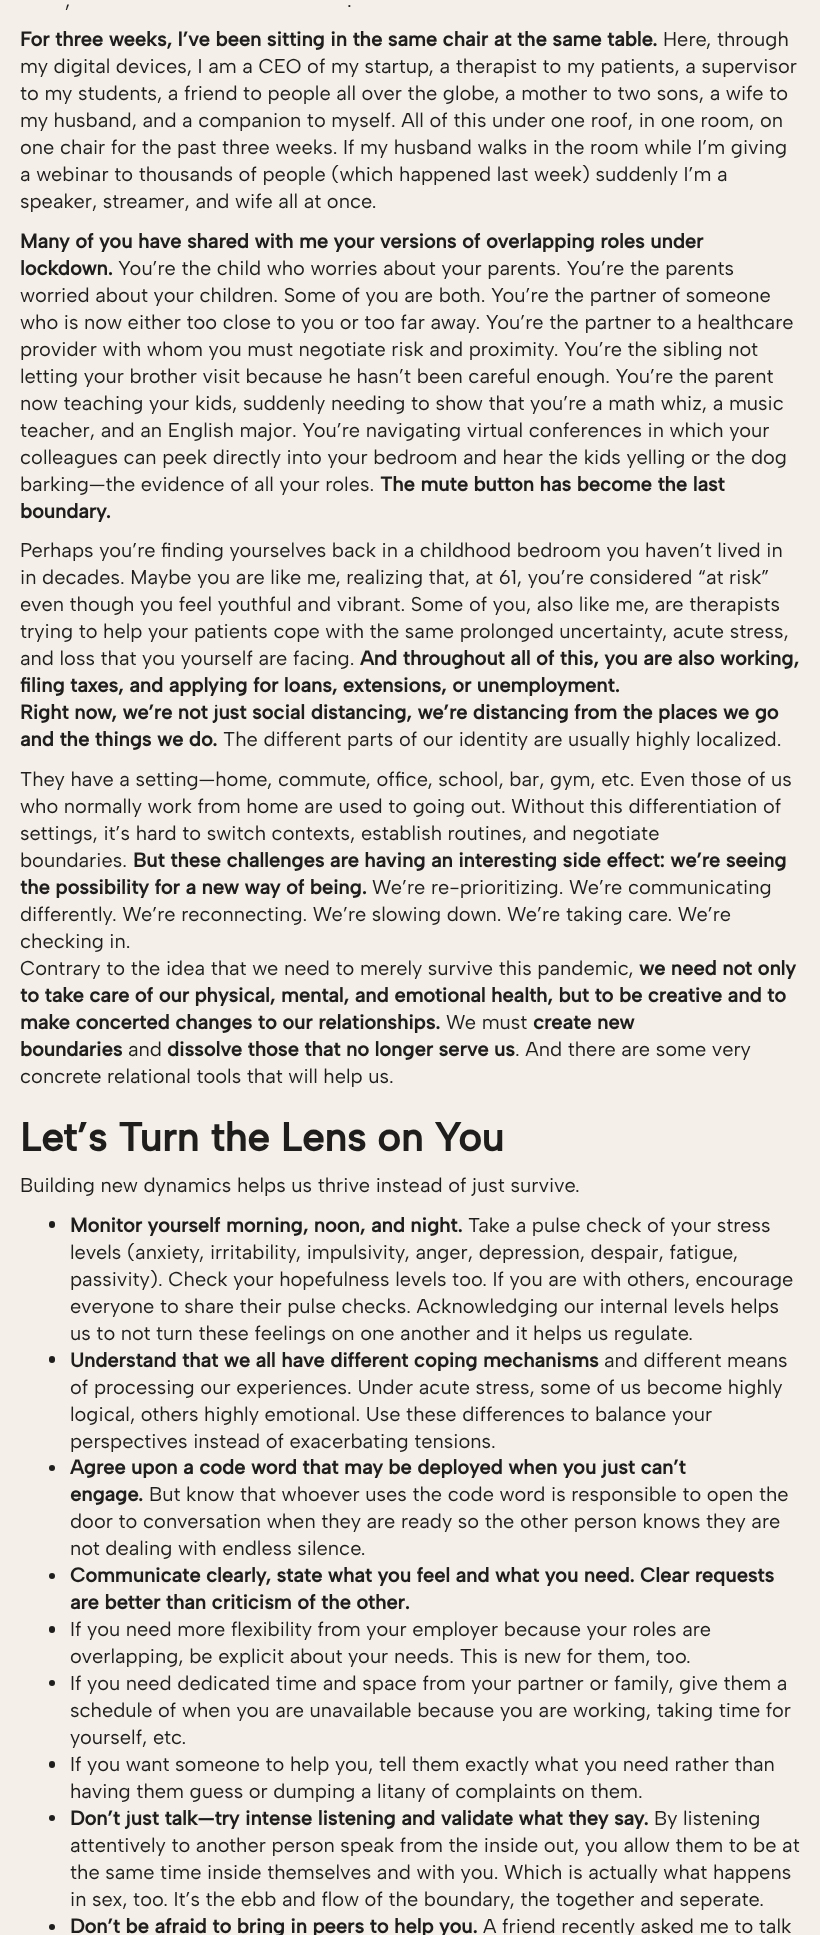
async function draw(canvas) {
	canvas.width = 820;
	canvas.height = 1935;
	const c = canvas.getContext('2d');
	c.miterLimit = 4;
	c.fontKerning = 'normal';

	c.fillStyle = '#f4efe8';
	c.fillRect(0, 0, 820, 1935);
	c.font = '20px Albert Sans';
	c.fillStyle = '#1f1e1d';
	c.fillText(',', 65, 7);
	c.fillText('.', 347, 7);
	c.font = 'bold 20px Albert Sans';
	c.fillText('For three weeks, I’ve been sitting in the same chair at the same table.', 20, 46);
	c.font = '20px Albert Sans';
	for (const [text, x, y] of [
		['Here, through', 663, 46],
		['my digital devices, I am a CEO of my startup, a therapist to my patients, a supervisor', 20, 73],
		['to my students, a friend to people all over the globe, a mother to two sons, a wife to', 20, 100],
		['my husband, and a companion to myself. All of this under one roof, in one room, on', 20, 127],
		['one chair for the past three weeks. If my husband walks in the room while I’m giving', 20, 154],
		['a webinar to thousands of people (which happened last week) suddenly I’m a', 20, 181],
		['speaker, streamer, and wife all at once.', 20, 208],
	]) {
		c.fillText(text, x, y);
	}
	c.font = 'bold 20px Albert Sans';
	c.fillText('Many of you have shared with me your versions of overlapping roles under', 20, 248);
	c.fillText('lockdown.', 20, 275);
	c.font = '20px Albert Sans';
	for (const [text, x, y] of [
		['You’re the child who worries about your parents. You’re the parents', 118, 275],
		['worried about your children. Some of you are both. You’re the partner of someone', 20, 302],
		['who is now either too close to you or too far away. You’re the partner to a healthcare', 20, 329],
		['provider with whom you must negotiate risk and proximity. You’re the sibling not', 20, 356],
		['letting your brother visit because he hasn’t been careful enough. You’re the parent', 20, 383],
		['now teaching your kids, suddenly needing to show that you’re a math whiz, a music', 20, 410],
		['teacher, and an English major. You’re navigating virtual conferences in which your', 20, 437],
		['colleagues can peek directly into your bedroom and hear the kids yelling or the dog', 20, 464],
		['barking—the evidence of all your roles.', 20, 491],
	]) {
		c.fillText(text, x, y);
	}
	c.font = 'bold 20px Albert Sans';
	c.fillText('The mute button has become the last', 380, 491);
	c.fillText('boundary.', 20, 518);
	c.font = '20px Albert Sans';
	for (const [text, x, y] of [
		['Perhaps you’re finding yourselves back in a childhood bedroom you haven’t lived in', 20, 557],
		['in decades. Maybe you are like me, realizing that, at 61, you’re considered “at risk”', 20, 584],
		['even though you feel youthful and vibrant. Some of you, also like me, are therapists', 20, 611],
		['trying to help your patients cope with the same prolonged uncertainty, acute stress,', 20, 638],
		['and loss that you yourself are facing.', 20, 665],
	]) {
		c.fillText(text, x, y);
	}
	c.font = 'bold 20px Albert Sans';
	for (const [text, x, y] of [
		['And throughout all of this, you are also working,', 360, 665],
		['filing taxes, and applying for loans, extensions, or unemployment.', 20, 692],
		['Right now, we’re not just social distancing, we’re distancing from the places we go', 20, 719],
		['and the things we do.', 20, 746],
	]) {
		c.fillText(text, x, y);
	}
	c.font = '20px Albert Sans';
	for (const [text, x, y] of [
		['The different parts of our identity are usually highly localized.', 223, 746],
		['They have a setting—home, commute, office, school, bar, gym, etc. Even those of us', 20, 786],
		['who normally work from home are used to going out. Without this differentiation of', 20, 813],
		['settings, it’s hard to switch contexts, establish routines, and negotiate', 20, 840],
		['boundaries.', 20, 867],
	]) {
		c.fillText(text, x, y);
	}
	c.font = 'bold 20px Albert Sans';
	c.fillText('But these challenges are having an interesting side effect: we’re seeing', 133, 867);
	c.fillText('the possibility for a new way of being.', 20, 894);
	c.font = '20px Albert Sans';
	for (const [text, x, y] of [
		['We’re re-prioritizing. We’re communicating', 372, 894],
		['differently. We’re reconnecting. We’re slowing down. We’re taking care. We’re', 20, 921],
		['checking in.', 20, 948],
		['Contrary to the idea that we need to merely survive this pandemic,', 20, 975],
	]) {
		c.fillText(text, x, y);
	}
	c.font = 'bold 20px Albert Sans';
	for (const [text, x, y] of [
		['we need not only', 639, 975],
		['to take care of our physical, mental, and emotional health, but to be creative and to', 20, 1002],
		['make concerted changes to our relationships.', 20, 1029],
	]) {
		c.fillText(text, x, y);
	}
	c.font = '20px Albert Sans';
	c.fillText('We must', 446, 1029);
	c.font = 'bold 20px Albert Sans';
	c.fillText('create new', 533, 1029);
	c.fillText('boundaries', 20, 1056);
	c.font = '20px Albert Sans';
	c.fillText('and', 128, 1056);
	c.font = 'bold 20px Albert Sans';
	c.fillText('dissolve those that no longer serve us', 167, 1056);
	c.font = '20px Albert Sans';
	c.fillText('. And there are some very', 515, 1056);
	c.fillText('concrete relational tools that will help us.', 20, 1083);
	c.font = 'bold 40px Albert Sans';
	c.fillText('Let’s Turn the Lens on You', 20, 1151);
	c.font = '20px Albert Sans';
	c.fillText('Building new dynamics helps us thrive instead of just survive.', 20, 1192);
	c.beginPath();
	c.roundRect(49, 1221, 6, 7, 3);
	c.fill();
	c.font = 'bold 20px Albert Sans';
	c.fillText('Monitor yourself morning, noon, and night.', 70, 1232);
	c.font = '20px Albert Sans';
	for (const [text, x, y] of [
		['Take a pulse check of your stress', 468, 1232],
		['levels (anxiety, irritability, impulsivity, anger, depression, despair, fatigue,', 70, 1259],
		['passivity). Check your hopefulness levels too. If you are with others, encourage', 70, 1286],
		['everyone to share their pulse checks. Acknowledging our internal levels helps', 70, 1313],
		['us to not turn these feelings on one another and it helps us regulate.', 70, 1340],
	]) {
		c.fillText(text, x, y);
	}
	c.beginPath();
	c.roundRect(49, 1356, 6, 7, 3);
	c.fill();
	c.font = 'bold 20px Albert Sans';
	c.fillText('Understand that we all have different coping mechanisms', 70, 1367);
	c.font = '20px Albert Sans';
	for (const [text, x, y] of [
		['and different means', 604, 1367],
		['of processing our experiences. Under acute stress, some of us become highly', 70, 1394],
		['logical, others highly emotional. Use these differences to balance your', 70, 1421],
		['perspectives instead of exacerbating tensions.', 70, 1448],
	]) {
		c.fillText(text, x, y);
	}
	c.beginPath();
	c.arc(52, 1468, 3, 0, 2 * Math.PI);
	c.fill();
	c.font = 'bold 20px Albert Sans';
	c.fillText('Agree upon a code word that may be deployed when you just can’t', 70, 1474);
	c.fillText('engage.', 70, 1501);
	c.font = '20px Albert Sans';
	for (const [text, x, y] of [
		['But know that whoever uses the code word is responsible to open the', 149, 1501],
		['door to conversation when they are ready so the other person knows they are', 70, 1528],
		['not dealing with endless silence.', 70, 1555],
	]) {
		c.fillText(text, x, y);
	}
	c.beginPath();
	c.arc(52, 1576, 3, 0, 2 * Math.PI);
	c.fill();
	c.font = 'bold 20px Albert Sans';
	c.fillText('Communicate clearly, state what you feel and what you need. Clear requests', 70, 1582);
	c.fillText('are better than criticism of the other.', 70, 1609);
	c.beginPath();
	c.roundRect(49, 1626, 6, 7, 3);
	c.fill();
	c.font = '20px Albert Sans';
	c.fillText('If you need more flexibility from your employer because your roles are', 70, 1636);
	c.fillText('overlapping, be explicit about your needs. This is new for them, too.', 70, 1663);
	c.beginPath();
	c.arc(52, 1683, 3, 0, 2 * Math.PI);
	c.fill();
	for (const [text, x, y] of [
		['If you need dedicated time and space from your partner or family, give them a', 70, 1690],
		['schedule of when you are unavailable because you are working, taking time for', 70, 1717],
		['yourself, etc.', 70, 1744],
	]) {
		c.fillText(text, x, y);
	}
	c.beginPath();
	c.roundRect(49, 1761, 6, 7, 3);
	c.fill();
	c.fillText('If you want someone to help you, tell them exactly what you need rather than', 70, 1771);
	c.fillText('having them guess or dumping a litany of complaints on them.', 70, 1798);
	c.beginPath();
	c.arc(52, 1818, 3, 0, 2 * Math.PI);
	c.fill();
	c.font = 'bold 20px Albert Sans';
	c.fillText('Don’t just talk—try intense listening and validate what they say.', 70, 1825);
	c.font = '20px Albert Sans';
	for (const [text, x, y] of [
		['By listening', 654, 1825],
		['attentively to another person speak from the inside out, you allow them to be at', 70, 1852],
		['the same time inside themselves and with you. Which is actually what happens', 70, 1879],
		['in sex, too. It’s the ebb and flow of the boundary, the together and seperate.', 70, 1906],
	]) {
		c.fillText(text, x, y);
	}
	c.beginPath();
	c.arc(52, 1927, 3, 0, 2 * Math.PI);
	c.fill();
	c.font = 'bold 20px Albert Sans';
	c.fillText('Don’t be afraid to bring in peers to help you.', 70, 1933);
	c.font = '20px Albert Sans';
	c.fillText('A friend recently asked me to talk', 483, 1933);
}

draw(document.querySelector('canvas'));
